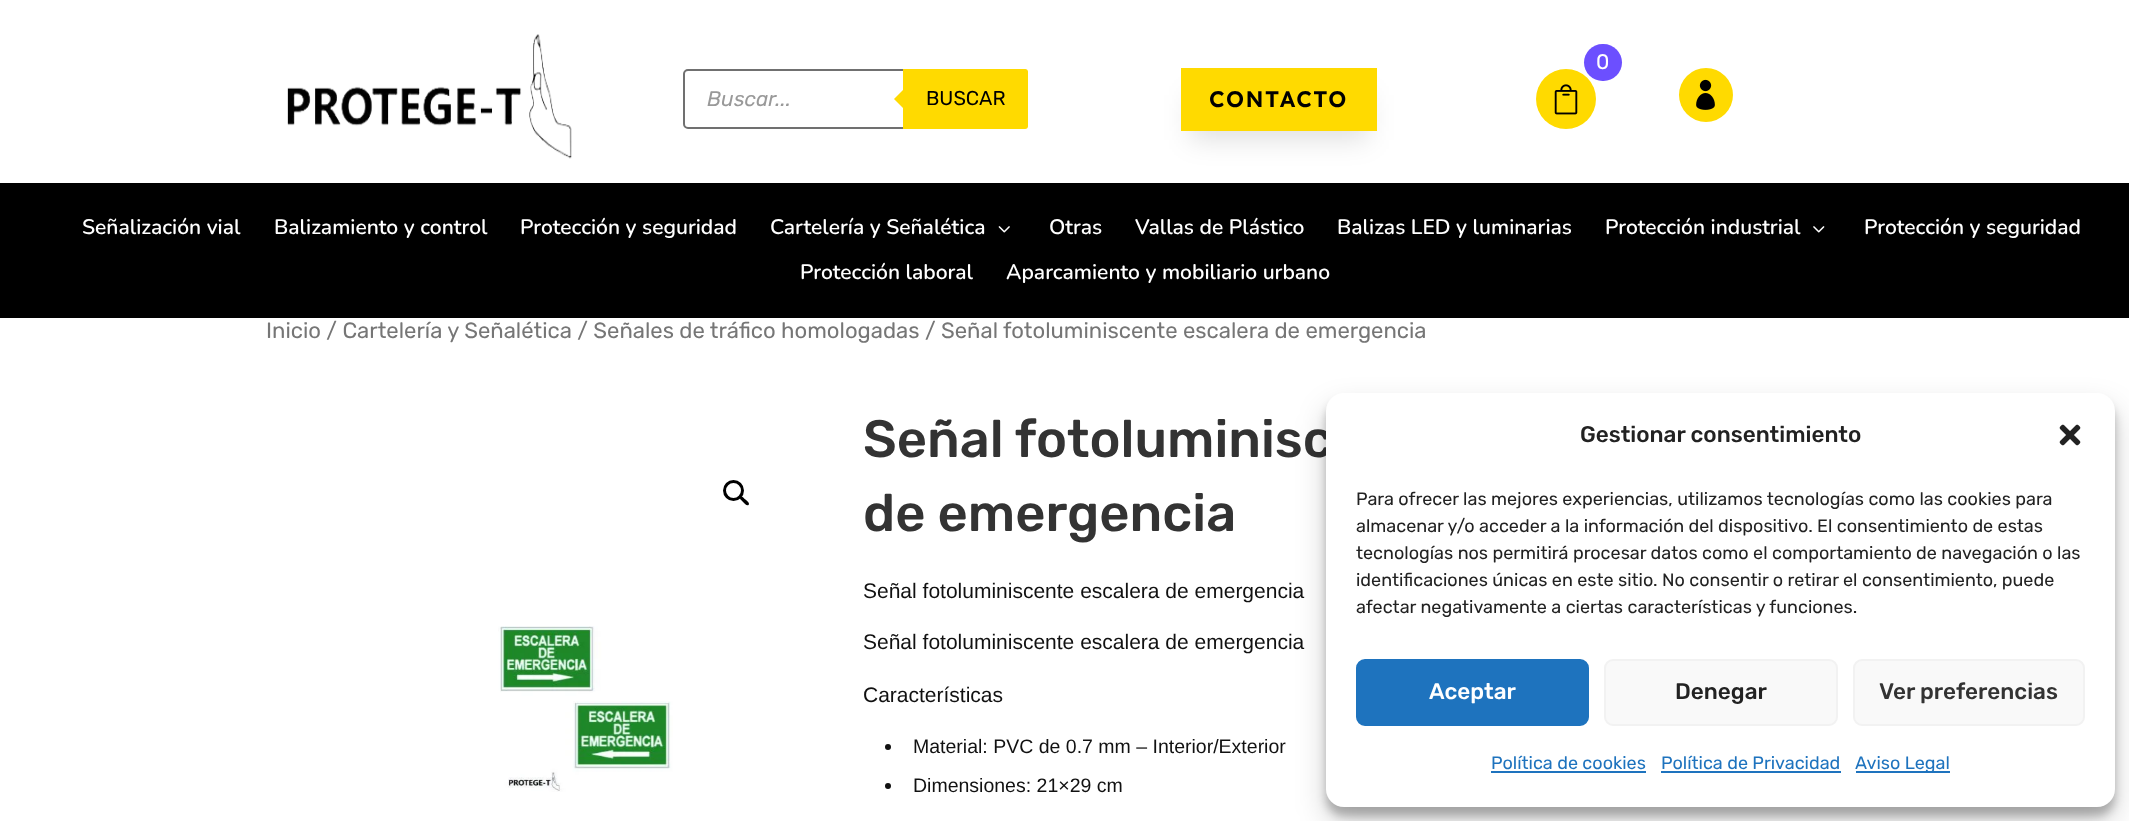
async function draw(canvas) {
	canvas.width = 2129;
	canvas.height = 821;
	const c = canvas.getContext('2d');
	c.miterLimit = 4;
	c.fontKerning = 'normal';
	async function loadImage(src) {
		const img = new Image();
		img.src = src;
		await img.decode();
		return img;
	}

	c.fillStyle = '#fff';
	c.fillRect(0, 0, 2129, 821);
	c.drawImage(await loadImage('img1.png'), 287, 34, 285, 125);
	c.fillStyle = '#ffda00';
	c.beginPath();
	c.arc(1566, 99, 30, 0, 2 * Math.PI);
	c.fill();
	c.fillStyle = '#6c4fff';
	c.beginPath();
	c.roundRect(1584, 44, 38, 37, 18.5);
	c.fill();
	c.font = '300 21px Rubik';
	c.fillStyle = '#fff';
	c.fillText('0', 1596, 69);
	c.drawImage(await loadImage('img2.png'), 1554, 84, 24, 31);
	c.fillStyle = '#ffda00';
	c.beginPath();
	c.arc(1706, 95, 27, 0, 2 * Math.PI);
	c.fill();
	c.drawImage(await loadImage('img3.png'), 1696, 79, 19, 31);
	c.beginPath();
	c.roundRect(684, 70, 343, 58, 4);
	c.strokeStyle = '#707070';
	c.lineWidth = 2;
	c.stroke();
	c.font = 'italic 300 21px Rubik';
	c.fillStyle = '#999';
	c.fillText('Buscar...', 707, 106);
	c.fillStyle = '#ffda00';
	c.beginPath();
	c.roundRect(903, 69, 125, 60, [0, 3, 3, 0]);
	c.fill();
	c.beginPath();
	c.moveTo(906, 87);
	c.lineTo(906, 111);
	c.lineTo(894, 99);
	c.closePath();
	c.fill();
	c.font = '300 20px Rubik';
	c.fillStyle = '#000';
	c.fillText('BUSCAR', 926, 105);
	c.fillStyle = '#0000001f';
	c.filter = 'blur(13.5px)';
	c.beginPath();
	c.rect(1190, 95, 178, 45);
	c.fill();
	c.filter = 'none';
	c.fillStyle = '#ffda00';
	c.fillRect(1181, 68, 196, 63);
	c.letterSpacing = '1.5px';
	c.font = '600 22.5px Lexend Deca';
	c.fillStyle = '#000';
	c.fillText('CONTACTO', 1209, 107);
	c.fillRect(0, 183, 2129, 135);
	c.letterSpacing = '0px';
	c.font = '200 21px Nunito';
	c.fillStyle = '#fff';
	for (const [text, x, y] of [
		['Señalización vial', 82, 234],
		['Balizamiento y control', 274, 234],
		['Protección y seguridad', 520, 234],
		['Cartelería y Señalética', 770, 234],
	]) {
		c.fillText(text, x, y);
	}
	c.drawImage(await loadImage('img4.png'), 998, 226, 12, 7);
	for (const [text, x, y] of [
		['Otras', 1049, 234],
		['Vallas de Plástico', 1135, 234],
		['Balizas LED y luminarias', 1337, 234],
		['Protección industrial', 1605, 234],
	]) {
		c.fillText(text, x, y);
	}
	c.drawImage(await loadImage('img5.png'), 1813, 226, 12, 7);
	for (const [text, x, y] of [
		['Protección y seguridad', 1864, 234],
		['Protección laboral', 800, 279],
		['Aparcamiento y mobiliario urbano', 1006, 279],
	]) {
		c.fillText(text, x, y);
	}
	c.font = '300 22.08px Rubik';
	c.fillStyle = '#767676';
	c.fillText('Inicio / Cartelería y Señalética / Señales de tráfico homologadas / Señal fotoluminiscente escalera de emergencia', 266, 338);
	c.beginPath();
	c.arc(733.5, 490.5, 9, 0, 2 * Math.PI);
	c.strokeStyle = '#000';
	c.lineWidth = 3;
	c.stroke();
	c.fillStyle = '#000';
	c.beginPath();
	c.moveTo(740, 496.5);
	c.bezierCurveTo(742, 495, 744.5, 499, 745.5, 499.5);
	c.bezierCurveTo(746.5, 500.5, 750.5, 503.5, 748.5, 505);
	c.bezierCurveTo(747, 506.5, 744, 503, 743, 502);
	c.bezierCurveTo(742.5, 501, 738.5, 498.5, 740, 496.5);
	c.closePath();
	c.fill();
	c.drawImage(await loadImage('img6.png'), 498, 626, 175, 166);
	c.font = '300 52.5px "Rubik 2"';
	c.fillStyle = '#333';
	c.fillText('Señal fotoluminisc', 863, 457);
	c.fillText('de emergencia', 863, 531);
	c.font = '21px Liberation Sans';
	c.fillStyle = '#111';
	for (const [text, x, y] of [
		['Señal fotoluminiscente escalera de emergencia', 863, 598],
		['Señal fotoluminiscente escalera de emergencia', 863, 649],
		['Características', 863, 702],
	]) {
		c.fillText(text, x, y);
	}
	c.beginPath();
	c.arc(888, 747, 3, 0, 2 * Math.PI);
	c.fill();
	c.font = '19.5px Liberation Sans';
	c.fillText('Material: PVC de 0.7 mm – Interior/Exterior', 913, 753);
	c.beginPath();
	c.arc(888, 786, 3, 0, 2 * Math.PI);
	c.fill();
	c.fillText('Dimensiones: 21×29 cm', 913, 792);
	c.fillStyle = '#0000003b';
	c.filter = 'blur(4.5px)';
	c.beginPath();
	c.roundRect(1326, 402, 789, 414, 18);
	c.fill();
	c.filter = 'none';
	c.fillStyle = '#00000030';
	c.filter = 'blur(15px)';
	c.beginPath();
	c.roundRect(1326, 408, 789, 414, 18);
	c.fill();
	c.filter = 'none';
	c.fillStyle = '#fff';
	c.beginPath();
	c.roundRect(1326, 393, 789, 414, 18);
	c.fill();
	c.font = '300 22.5px "Rubik 2"';
	c.fillStyle = '#222';
	c.fillText('Gestionar consentimiento', 1580, 442);
	c.drawImage(await loadImage('img7.png'), 2059, 424, 22, 22);
	c.font = '300 18px Rubik';
	for (const [text, x, y] of [
		['Para ofrecer las mejores experiencias, utilizamos tecnologías como las cookies para', 1356, 505],
		['almacenar y/o acceder a la información del dispositivo. El consentimiento de estas', 1356, 532],
		['tecnologías nos permitirá procesar datos como el comportamiento de navegación o las', 1356, 559],
		['identificaciones únicas en este sitio. No consentir o retirar el consentimiento, puede', 1356, 586],
		['afectar negativamente a ciertas características y funciones.', 1356, 613],
	]) {
		c.fillText(text, x, y);
	}
	c.fillStyle = '#1e73be';
	c.beginPath();
	c.roundRect(1357, 660, 231, 65, 8);
	c.fill();
	c.strokeStyle = '#1e73be';
	c.lineWidth = 2;
	c.stroke();
	c.font = '300 22.5px "Rubik 2"';
	c.fillStyle = '#fff';
	c.fillText('Aceptar', 1429, 699);
	c.fillStyle = '#f9f9f9';
	c.beginPath();
	c.roundRect(1605, 660, 232, 65, 8);
	c.fill();
	c.strokeStyle = '#f2f2f2';
	c.stroke();
	c.fillStyle = '#222';
	c.fillText('Denegar', 1675, 699);
	c.fillStyle = '#f9f9f9';
	c.beginPath();
	c.roundRect(1854, 660, 230, 65, 8);
	c.fill();
	c.stroke();
	c.fillStyle = '#333';
	c.fillText('Ver preferencias', 1879, 699);
	c.font = '300 18px Rubik';
	c.fillStyle = '#1e73be';
	c.fillText('Política de cookies', 1491, 769);
	c.fillRect(1491, 771, 155, 2);
	c.fillText('Política de Privacidad', 1661, 769);
	c.fillRect(1661, 771, 180, 2);
	c.fillRect(1856, 771, 94, 2);
	c.fillText('Aviso Legal', 1855, 769);
}

draw(document.querySelector('canvas'));
